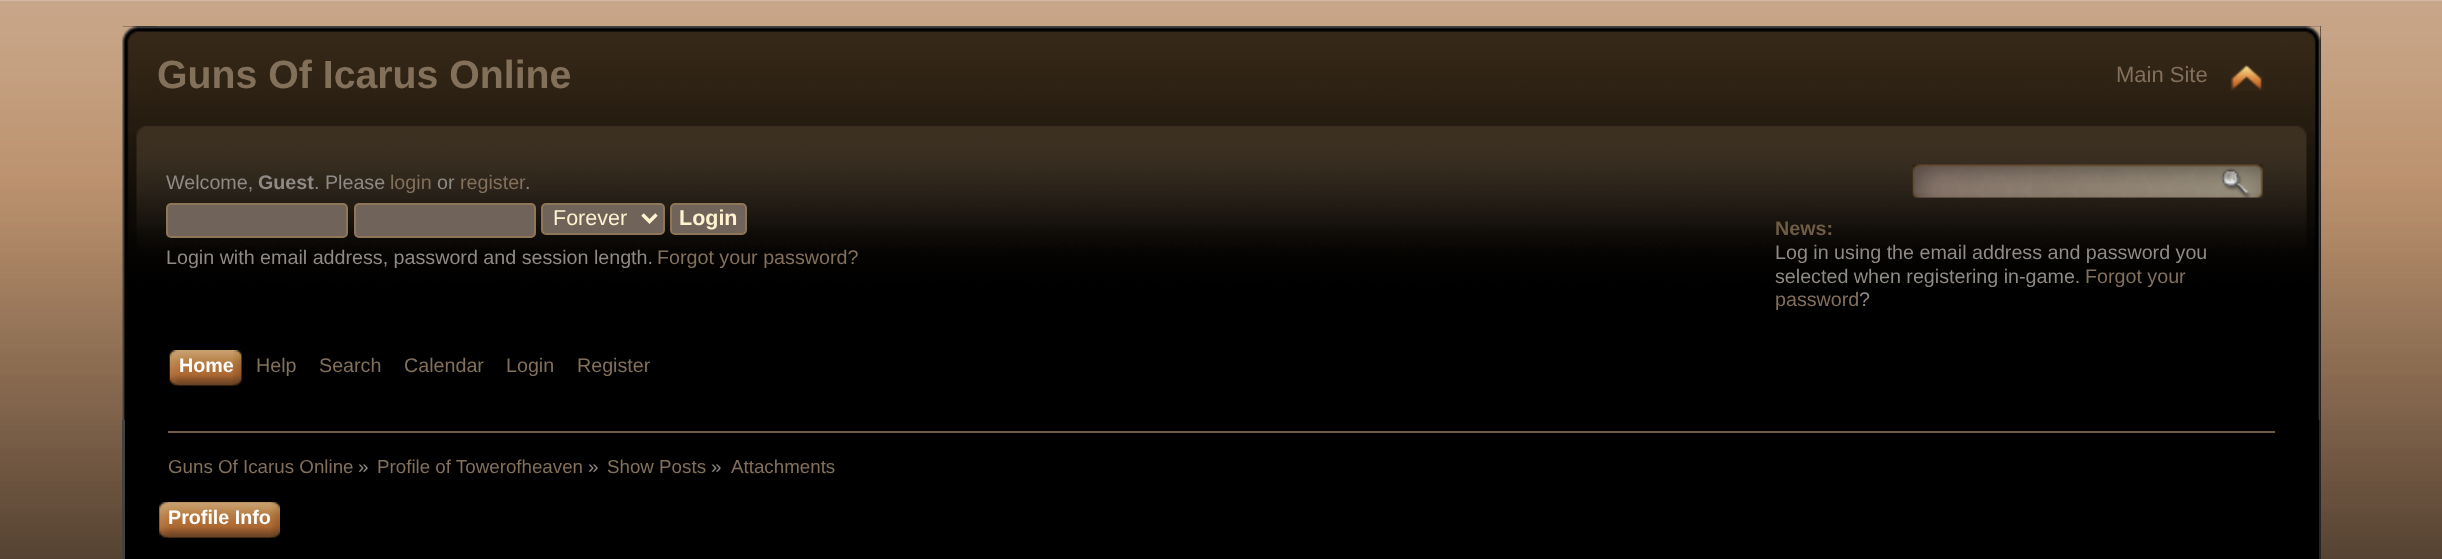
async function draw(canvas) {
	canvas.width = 2442;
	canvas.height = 559;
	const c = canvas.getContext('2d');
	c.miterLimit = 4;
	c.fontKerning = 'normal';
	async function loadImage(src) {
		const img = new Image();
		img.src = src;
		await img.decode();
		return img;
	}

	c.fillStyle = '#fff';
	c.fillRect(0, 0, 2442, 559);
	c.drawImage(await loadImage('img1.png'), 0, 0, 2442, 559);
	c.fillStyle = '#000';
	c.fillRect(123, 26, 2198, 394);
	c.drawImage(await loadImage('img2.png'), 122, 26, 2199, 394);
	c.drawImage(await loadImage('img3.png'), 157, 26, 2164, 394);
	c.font = 'bold 39.25px Liberation Sans';
	c.fillStyle = '#82705b';
	c.fillText('Guns Of Icarus Online', 157, 88);
	c.font = '22px Liberation Sans';
	c.fillText('Main Site', 2116, 82);
	c.drawImage(await loadImage('img4.png'), 2230, 64, 34, 27);
	c.font = '19.7px Liberation Sans';
	c.fillStyle = '#8f8a86';
	c.fillText('Welcome,', 166, 189);
	c.font = 'bold 19.7px Liberation Sans';
	c.fillText('Guest', 258, 189);
	c.font = '19.7px Liberation Sans';
	c.fillText('. Please', 314, 189);
	c.fillStyle = '#82705b';
	c.fillText('login', 390, 189);
	c.fillStyle = '#8f8a86';
	c.fillText('or', 437, 189);
	c.fillStyle = '#82705b';
	c.fillText('register', 460, 189);
	c.fillStyle = '#8f8a86';
	c.fillText('.', 525, 189);
	c.fillStyle = '#6f635a';
	c.beginPath();
	c.roundRect(167, 204, 180, 33, 4);
	c.fill();
	c.strokeStyle = '#8f7659';
	c.lineWidth = 2;
	c.stroke();
	c.beginPath();
	c.roundRect(355, 204, 180, 33, 4);
	c.fill();
	c.stroke();
	c.beginPath();
	c.roundRect(542, 204, 122, 30, 4);
	c.fill();
	c.stroke();
	c.beginPath();
	c.moveTo(642.5, 214.5);
	c.lineTo(649.5, 221.5);
	c.lineTo(656.5, 214.5);
	c.strokeStyle = '#fff2cf';
	c.lineWidth = 3.5;
	c.stroke();
	c.font = '21.5px Liberation Sans';
	c.fillStyle = '#fff2cf';
	c.fillText('Forever', 553, 225);
	c.fillStyle = '#6f635a';
	c.beginPath();
	c.roundRect(671, 204, 75, 30, 4);
	c.fill();
	c.strokeStyle = '#8f7659';
	c.lineWidth = 2;
	c.stroke();
	c.font = 'bold 21.5px Liberation Sans';
	c.fillStyle = '#fff2cf';
	c.fillText('Login', 679, 225);
	c.font = '19.7px Liberation Sans';
	c.fillStyle = '#8f8a86';
	c.fillText('Login with email address, password and session length.', 166, 264);
	c.fillStyle = '#82705b';
	c.fillText('Forgot your password?', 657, 264);
	c.drawImage(await loadImage('img5.png'), 1912, 164, 351, 34);
	c.font = 'bold 19.7px Liberation Sans';
	c.fillStyle = '#6f5c45';
	c.fillText('News:', 1775, 235);
	c.font = '19.7px Liberation Sans';
	c.fillStyle = '#8f8a86';
	c.fillText('Log in using the email address and password you', 1775, 259);
	c.fillText('selected when registering in-game.', 1775, 283);
	c.fillStyle = '#82705b';
	c.fillText('Forgot your', 2085, 283);
	c.fillText('password', 1775, 306);
	c.fillStyle = '#8f8a86';
	c.fillText('?', 1859, 306);
	c.drawImage(await loadImage('img6.png'), 178, 350, 64, 36);
	c.drawImage(await loadImage('img7.png'), 169, 350, 64, 36);
	c.font = 'bold 19.7px Liberation Sans';
	c.fillStyle = '#fff';
	c.fillText('Home', 179, 372);
	c.font = '19.7px Liberation Sans';
	c.fillStyle = '#82705b';
	for (const [text, x, y] of [
		['Help', 256, 372],
		['Search', 319, 372],
		['Calendar', 404, 372],
		['Login', 506, 372],
		['Register', 577, 372],
	]) {
		c.fillText(text, x, y);
	}
	c.fillStyle = '#000';
	c.fillRect(125, 420, 2196, 139);
	c.fillStyle = '#424242';
	c.fillRect(122, 420, 3, 139);
	c.drawImage(await loadImage('img8.png'), 2319, 420, 2, 139);
	c.fillStyle = '#6f5c45';
	c.fillRect(168, 431, 2107, 2);
	c.font = '18.75px Liberation Sans';
	c.fillStyle = '#82705b';
	c.fillText('Guns Of Icarus Online', 168, 473);
	c.fillStyle = '#8f8a86';
	c.fillText('»', 358, 473);
	c.fillStyle = '#82705b';
	c.fillText('Profile of Towerofheaven', 377, 473);
	c.fillStyle = '#8f8a86';
	c.fillText('»', 588, 473);
	c.fillStyle = '#82705b';
	c.fillText('Show Posts', 607, 473);
	c.fillStyle = '#8f8a86';
	c.fillText('»', 711, 473);
	c.fillStyle = '#82705b';
	c.fillText('Attachments', 731, 473);
	c.drawImage(await loadImage('img9.png'), 168, 502, 112, 36);
	c.drawImage(await loadImage('img10.png'), 159, 502, 113, 36);
	c.font = 'bold 19.7px Liberation Sans';
	c.fillStyle = '#fff';
	c.fillText('Profile Info', 168, 524);
}

draw(document.querySelector('canvas'));
